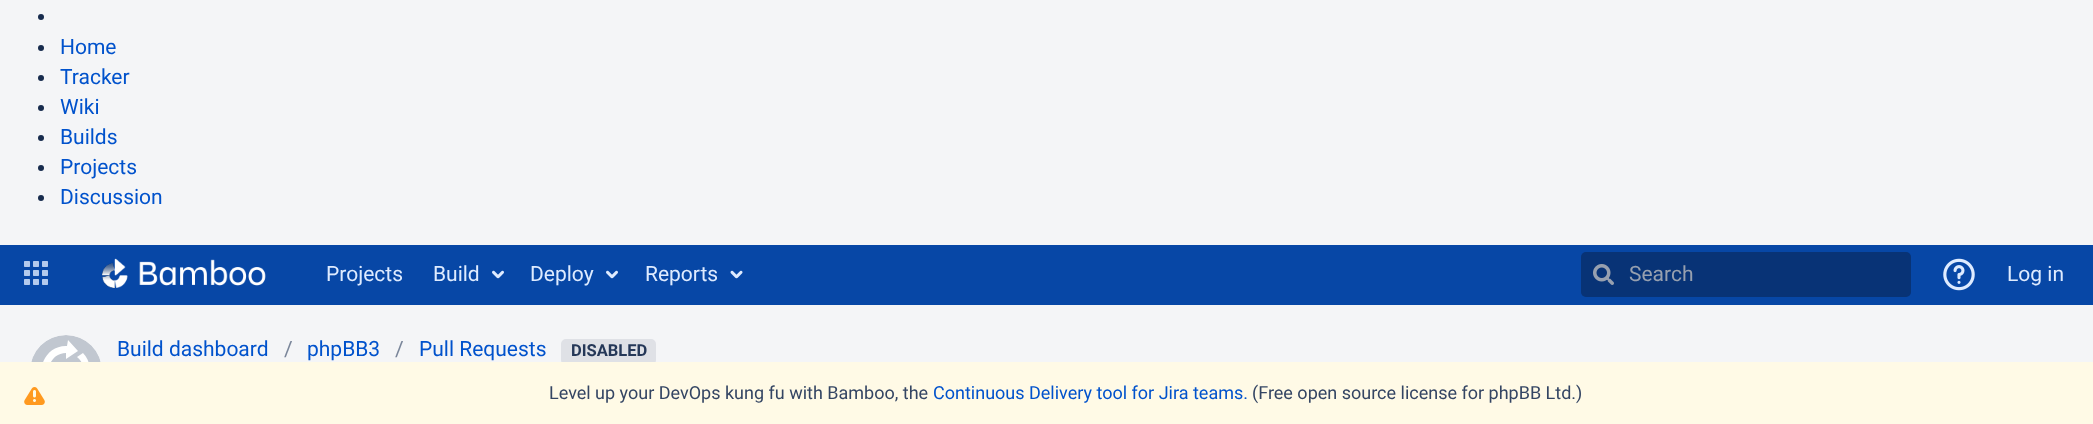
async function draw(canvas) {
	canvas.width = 2093;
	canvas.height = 424;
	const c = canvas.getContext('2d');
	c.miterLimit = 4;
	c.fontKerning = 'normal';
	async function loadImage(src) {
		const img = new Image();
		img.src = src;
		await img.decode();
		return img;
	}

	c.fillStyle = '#f4f5f7';
	c.fillRect(0, 0, 2093, 424);
	c.fillStyle = '#172b4d';
	c.beginPath();
	c.arc(41, 17, 3, 0, 2 * Math.PI);
	c.fill();
	c.beginPath();
	c.arc(41, 48, 3, 0, 2 * Math.PI);
	c.fill();
	c.font = '21px Roboto';
	c.fillStyle = '#0052cc';
	c.fillText('Home', 60, 54);
	c.fillStyle = '#172b4d';
	c.beginPath();
	c.arc(41, 78, 3, 0, 2 * Math.PI);
	c.fill();
	c.fillStyle = '#0052cc';
	c.fillText('Tracker', 60, 84);
	c.fillStyle = '#172b4d';
	c.beginPath();
	c.arc(41, 108, 3, 0, 2 * Math.PI);
	c.fill();
	c.fillStyle = '#0052cc';
	c.fillText('Wiki', 60, 114);
	c.fillStyle = '#172b4d';
	c.beginPath();
	c.arc(41, 138, 3, 0, 2 * Math.PI);
	c.fill();
	c.fillStyle = '#0052cc';
	c.fillText('Builds', 60, 144);
	c.fillStyle = '#172b4d';
	c.beginPath();
	c.arc(41, 168, 3, 0, 2 * Math.PI);
	c.fill();
	c.fillStyle = '#0052cc';
	c.fillText('Projects', 60, 174);
	c.fillStyle = '#172b4d';
	c.beginPath();
	c.arc(41, 198, 3, 0, 2 * Math.PI);
	c.fill();
	c.fillStyle = '#0052cc';
	c.fillText('Discussion', 60, 204);
	c.fillStyle = '#0747a6';
	c.fillRect(0, 245, 2093, 60);
	c.drawImage(await loadImage('img1.png'), 24, 261, 24, 24);
	c.drawImage(await loadImage('img2.png'), 102, 258, 164, 30);
	c.fillStyle = '#deebff';
	c.fillText('Projects', 326, 281);
	c.fillText('Build', 433, 281);
	c.drawImage(await loadImage('img3.png'), 492, 270, 12, 9);
	c.fillText('Deploy', 530, 281);
	c.drawImage(await loadImage('img3.png'), 606, 270, 12, 9);
	c.fillText('Reports', 645, 281);
	c.drawImage(await loadImage('img4.png'), 730, 270, 13, 9);
	c.fillStyle = '#083376';
	c.beginPath();
	c.roundRect(1581, 252, 330, 45, 5);
	c.fill();
	c.drawImage(await loadImage('img5.png'), 1593, 264, 21, 21);
	c.fillStyle = '#97a0af';
	c.fillText('Search', 1629, 281);
	c.drawImage(await loadImage('img6.png'), 1943, 258, 32, 33);
	c.fillStyle = '#deebff';
	c.fillText('Log in', 2007, 281);
	c.save();
	c.beginPath();
	c.roundRect(30, 335, 72, 72, 36);
	c.clip();
	c.fillStyle = '#c1c7d0';
	c.beginPath();
	c.roundRect(30, 335, 72, 71, [36, 36, 0, 0]);
	c.fill();
	c.restore();
	c.fillStyle = '#fff';
	c.beginPath();
	c.moveTo(55, 384);
	c.lineTo(49, 388);
	c.bezierCurveTo(33, 372, 45, 345, 67, 346);
	c.lineTo(68, 340);
	c.lineTo(78, 351);
	c.lineTo(66, 359);
	c.lineTo(66, 353);
	c.bezierCurveTo(50, 353, 43, 373, 55, 384);
	c.closePath();
	c.moveTo(67, 381);
	c.lineTo(66, 388);
	c.bezierCurveTo(82, 388, 90, 367, 77, 357);
	c.lineTo(83, 353);
	c.bezierCurveTo(98, 369, 88, 396, 65, 395);
	c.lineTo(64, 401);
	c.lineTo(54, 390);
	c.closePath();
	c.fill('evenodd');
	c.fillStyle = '#0052cc';
	c.fillText('Build dashboard', 117, 356);
	c.fillStyle = '#7a869a';
	c.fillText('/', 284, 356);
	c.fillStyle = '#0052cc';
	c.fillText('phpBB3', 307, 356);
	c.fillStyle = '#7a869a';
	c.fillText('/', 395, 356);
	c.fillStyle = '#0052cc';
	c.fillText('Pull Requests', 419, 356);
	c.fillStyle = '#dfe1e6';
	c.beginPath();
	c.roundRect(562, 340, 93, 24, 4);
	c.fill();
	c.strokeStyle = '#dfe1e6';
	c.lineWidth = 2;
	c.stroke();
	c.font = 'bold 16.5px Roboto';
	c.fillStyle = '#253858';
	c.fillText('DISABLED', 571, 356);
	c.fillStyle = '#fffae6';
	c.fillRect(0, 362, 2093, 62);
	c.drawImage(await loadImage('img7.png'), 24, 387, 21, 18);
	c.font = '18px Roboto';
	c.fillStyle = '#344563';
	c.fillText('Level up your DevOps kung fu with Bamboo, the', 549, 399);
	c.fillStyle = '#0052cc';
	c.fillText('Continuous Delivery tool for Jira teams.', 933, 399);
	c.fillStyle = '#344563';
	c.fillText('(Free open source license for phpBB Ltd.)', 1252, 399);
}

draw(document.querySelector('canvas'));
